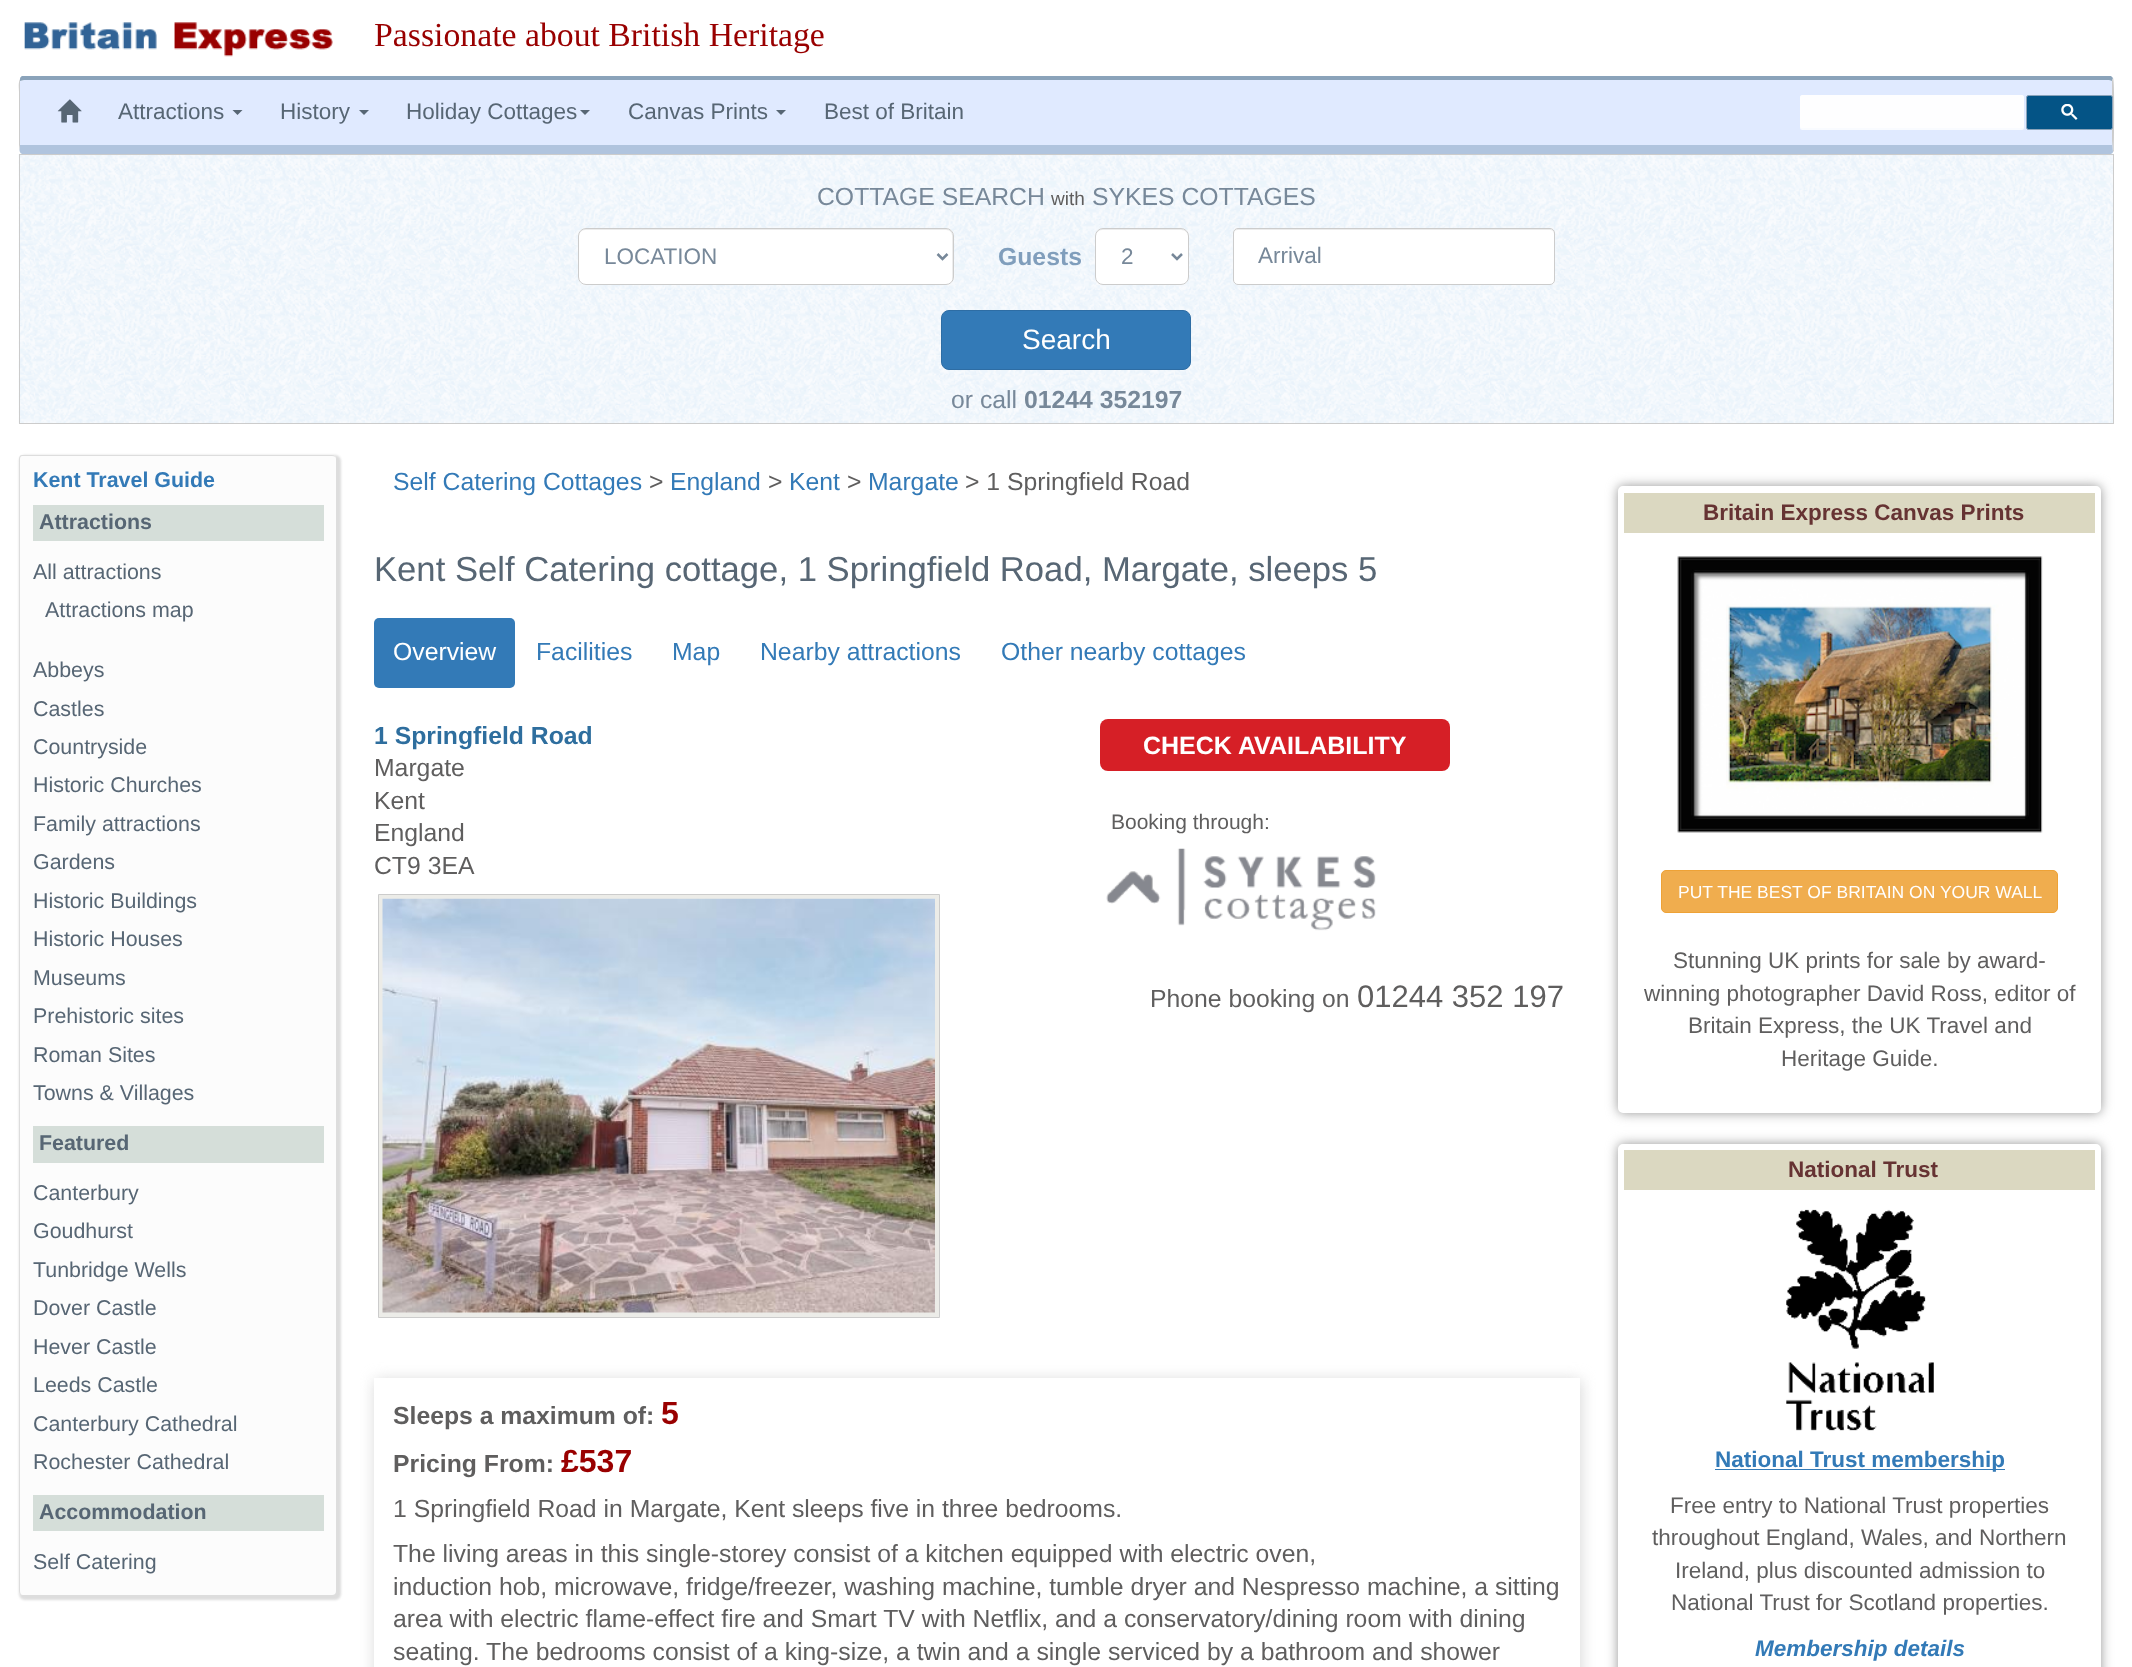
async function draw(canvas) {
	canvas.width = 2132;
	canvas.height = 1667;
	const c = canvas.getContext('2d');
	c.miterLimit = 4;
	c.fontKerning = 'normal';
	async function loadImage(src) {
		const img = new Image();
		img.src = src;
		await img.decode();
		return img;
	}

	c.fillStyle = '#fff';
	c.fillRect(0, 0, 2132, 1667);
	c.drawImage(await loadImage('img1.png'), 24, 22, 309, 35);
	c.font = '33.75px Liberation Serif';
	c.fillStyle = '#900';
	c.fillText('Passionate about British Heritage', 374, 46);
	c.fillStyle = '#e0eaff';
	c.beginPath();
	c.moveTo(24, 80);
	c.lineTo(2109, 80);
	c.bezierCurveTo(2111, 80, 2112, 81, 2112, 81);
	c.lineTo(2112, 145);
	c.lineTo(20, 145);
	c.lineTo(20, 81);
	c.closePath();
	c.fill();
	c.fillStyle = '#8aa3ba';
	c.beginPath();
	c.moveTo(24, 80);
	c.lineTo(20, 81);
	c.lineTo(20, 79);
	c.bezierCurveTo(20, 77, 21, 77, 22, 76);
	c.lineTo(2111, 76);
	c.lineTo(2113, 78);
	c.lineTo(2112, 81);
	c.lineTo(2109, 80);
	c.closePath();
	c.fill();
	c.fillStyle = '#ccc';
	c.beginPath();
	c.moveTo(2114, 151);
	c.lineTo(2113, 152);
	c.lineTo(2112, 141);
	c.lineTo(2112, 81);
	c.lineTo(2113, 78);
	c.bezierCurveTo(2115, 80, 2114, 143, 2114, 151);
	c.closePath();
	c.fill();
	c.drawImage(await loadImage('img4.png'), 18, 153, 2096, 271);
	c.fillStyle = '#b0c4de';
	c.beginPath();
	c.moveTo(22, 154);
	c.bezierCurveTo(18, 152, 20, 148, 20, 145);
	c.lineTo(2112, 145);
	c.lineTo(2112, 141);
	c.lineTo(2113, 152);
	c.bezierCurveTo(2113, 153, 2112, 153, 2111, 154);
	c.closePath();
	c.fill();
	c.fillStyle = '#ccc';
	c.beginPath();
	c.moveTo(19, 151);
	c.lineTo(19, 92);
	c.bezierCurveTo(19, 88, 18, 83, 20, 79);
	c.lineTo(20, 81);
	c.lineTo(20, 145);
	c.closePath();
	c.fill();
	c.drawImage(await loadImage('img2.png'), 57, 99, 25, 24);
	c.font = '22.5px Liberation Sans';
	c.fillStyle = '#576674';
	c.fillText('Attractions', 118, 119);
	c.beginPath();
	c.moveTo(232.5, 110);
	c.lineTo(242.5, 110);
	c.lineTo(237.5, 115);
	c.closePath();
	c.fill();
	c.fillText('History', 280, 119);
	c.beginPath();
	c.moveTo(359, 110);
	c.lineTo(369, 110);
	c.lineTo(364, 115);
	c.closePath();
	c.fill();
	c.fillText('Holiday Cottages', 406, 119);
	c.beginPath();
	c.moveTo(580, 110);
	c.lineTo(590, 110);
	c.lineTo(585, 115);
	c.closePath();
	c.fill();
	c.fillText('Canvas Prints', 628, 119);
	c.beginPath();
	c.moveTo(776, 110);
	c.lineTo(786, 110);
	c.lineTo(781, 115);
	c.closePath();
	c.fill();
	c.fillText('Best of Britain', 824, 119);
	c.fillStyle = '#f9fbff';
	c.beginPath();
	c.roundRect(1800, 95, 224, 35, 2.5);
	c.fill();
	c.fillStyle = '#ffffffcc';
	c.beginPath();
	c.roundRect(1800, 95, 224, 33, 2.5);
	c.fill();
	c.fillStyle = '#045486';
	c.beginPath();
	c.roundRect(2026.5, 95.5, 86, 34, 2);
	c.fill();
	c.strokeStyle = '#8aa3ba';
	c.stroke();
	c.drawImage(await loadImage('img3.png'), 2061, 104, 17, 16);
	c.strokeStyle = '#ccc';
	c.strokeRect(19.5, 154.5, 2094, 269);
	c.font = '24.75px Liberation Sans';
	c.fillStyle = '#789';
	c.fillText('COTTAGE SEARCH', 817, 205);
	c.font = '19px Liberation Sans';
	c.fillStyle = '#5f5e5e';
	c.fillText('with', 1051, 205);
	c.font = '24.75px Liberation Sans';
	c.fillStyle = '#789';
	c.fillText('SYKES COTTAGES', 1092, 205);
	c.fillStyle = '#fff';
	c.beginPath();
	c.roundRect(578, 228, 376, 57, 8);
	c.fill();
	c.fillStyle = '#ececec';
	c.beginPath();
	c.moveTo(585, 230);
	c.lineTo(946, 230);
	c.bezierCurveTo(950, 230, 952, 233, 952, 236);
	c.lineTo(952, 279);
	c.bezierCurveTo(952, 280, 952, 281, 951, 282);
	c.bezierCurveTo(952, 281, 953, 280, 953, 278);
	c.lineTo(953, 235);
	c.bezierCurveTo(953, 232, 950, 229, 947, 229);
	c.lineTo(585, 229);
	c.bezierCurveTo(582, 229, 579, 232, 579, 235);
	c.lineTo(579, 236);
	c.bezierCurveTo(579, 233, 582, 230, 585, 230);
	c.closePath();
	c.fill();
	c.beginPath();
	c.roundRect(578.5, 228.5, 375, 56, 7.5);
	c.stroke();
	c.beginPath();
	c.moveTo(937.5, 254);
	c.lineTo(942.5, 259);
	c.lineTo(947.5, 254);
	c.strokeStyle = '#789';
	c.lineWidth = 2.5;
	c.stroke();
	c.font = '22.5px Liberation Sans';
	c.fillStyle = '#789';
	c.fillText('LOCATION', 604, 264);
	c.font = 'bold 24.75px Liberation Sans';
	c.fillStyle = '#809ebc';
	c.fillText('Guests', 998, 265);
	c.fillStyle = '#fff';
	c.beginPath();
	c.roundRect(1095, 228, 94, 57, 8);
	c.fill();
	c.fillStyle = '#ececec';
	c.beginPath();
	c.moveTo(1102, 230);
	c.lineTo(1181, 230);
	c.bezierCurveTo(1185, 230, 1188, 233, 1188, 236);
	c.bezierCurveTo(1188, 226, 1175, 229, 1169, 229);
	c.lineTo(1115, 229);
	c.bezierCurveTo(1109, 229, 1096, 226, 1096, 236);
	c.bezierCurveTo(1096, 233, 1099, 230, 1102, 230);
	c.closePath();
	c.fill();
	c.beginPath();
	c.roundRect(1095.5, 228.5, 93, 56, 7.5);
	c.strokeStyle = '#ccc';
	c.lineWidth = 1;
	c.stroke();
	c.beginPath();
	c.moveTo(1172, 254);
	c.lineTo(1177, 259);
	c.lineTo(1182, 254);
	c.strokeStyle = '#789';
	c.lineWidth = 2.5;
	c.stroke();
	c.font = '22.5px Liberation Sans';
	c.fillStyle = '#789';
	c.fillText('2', 1121, 264);
	c.fillStyle = '#fff';
	c.beginPath();
	c.roundRect(1233, 228, 322, 57, 5);
	c.fill();
	c.fillStyle = '#ececec';
	c.beginPath();
	c.moveTo(1238, 230);
	c.lineTo(1550, 230);
	c.bezierCurveTo(1552, 230, 1554, 232, 1554, 234);
	c.lineTo(1554, 233);
	c.bezierCurveTo(1554, 231, 1552, 229, 1550, 229);
	c.lineTo(1238, 229);
	c.bezierCurveTo(1236, 229, 1234, 231, 1234, 233);
	c.lineTo(1234, 234);
	c.bezierCurveTo(1234, 232, 1235, 230, 1238, 230);
	c.closePath();
	c.fill();
	c.beginPath();
	c.roundRect(1233.5, 228.5, 321, 56, 4.5);
	c.strokeStyle = '#ccc';
	c.lineWidth = 1;
	c.stroke();
	c.fillStyle = '#789';
	c.fillText('Arrival', 1258, 263);
	c.fillStyle = '#337ab7';
	c.beginPath();
	c.roundRect(941.5, 310.5, 249, 59, 7.5);
	c.fill();
	c.strokeStyle = '#2e6da4';
	c.stroke();
	c.font = '28px Liberation Sans';
	c.fillStyle = '#fff';
	c.fillText('Search', 1022, 349);
	c.font = '24.75px Liberation Sans';
	c.fillStyle = '#789';
	c.fillText('or call', 951, 408);
	c.font = 'bold 24.75px Liberation Sans';
	c.fillText('01244 352197', 1024, 408);
	c.fillStyle = '#ddd';
	c.filter = 'blur(1px)';
	c.beginPath();
	c.roundRect(19, 455, 322, 1145, 6);
	c.fill();
	c.filter = 'none';
	c.fillStyle = '#fcfcfc';
	c.beginPath();
	c.roundRect(19, 455, 317, 1140, 4);
	c.fill();
	c.fillStyle = '#ddd';
	c.beginPath();
	c.moveTo(22, 455);
	c.lineTo(332, 455);
	c.bezierCurveTo(335, 455, 336, 457, 336, 459);
	c.lineTo(336, 1591);
	c.bezierCurveTo(336, 1593, 335, 1595, 332, 1595);
	c.lineTo(22, 1595);
	c.bezierCurveTo(20, 1595, 19, 1593, 19, 1591);
	c.lineTo(19, 459);
	c.bezierCurveTo(19, 457, 20, 455, 22, 455);
	c.closePath();
	c.moveTo(22, 456);
	c.lineTo(332, 456);
	c.bezierCurveTo(335, 456, 336, 457, 336, 459);
	c.lineTo(336, 1591);
	c.bezierCurveTo(336, 1593, 335, 1595, 332, 1595);
	c.lineTo(22, 1595);
	c.bezierCurveTo(21, 1595, 20, 1593, 20, 1591);
	c.lineTo(20, 459);
	c.bezierCurveTo(20, 457, 21, 456, 22, 456);
	c.closePath();
	c.fill('evenodd');
	c.font = 'bold 21.4px Liberation Sans';
	c.fillStyle = '#337ab7';
	c.fillText('Kent Travel Guide', 33, 487);
	c.fillStyle = '#d5ded9';
	c.fillRect(33, 505, 291, 36);
	c.fillStyle = '#576674';
	c.fillText('Attractions', 39, 529);
	c.font = '21.4px Liberation Sans';
	for (const [text, x, y] of [
		['All attractions', 33, 579],
		['Attractions map', 45, 617],
		['Abbeys', 33, 677],
		['Castles', 33, 716],
		['Countryside', 33, 754],
		['Historic Churches', 33, 792],
		['Family attractions', 33, 831],
		['Gardens', 33, 869],
		['Historic Buildings', 33, 908],
		['Historic Houses', 33, 946],
		['Museums', 33, 985],
		['Prehistoric sites', 33, 1023],
		['Roman Sites', 33, 1062],
		['Towns & Villages', 33, 1100],
	]) {
		c.fillText(text, x, y);
	}
	c.fillStyle = '#d5ded9';
	c.fillRect(33, 1126, 291, 37);
	c.font = 'bold 21.4px Liberation Sans';
	c.fillStyle = '#576674';
	c.fillText('Featured', 39, 1150);
	c.font = '21.4px Liberation Sans';
	for (const [text, x, y] of [
		['Canterbury', 33, 1200],
		['Goudhurst', 33, 1238],
		['Tunbridge Wells', 33, 1277],
		['Dover Castle', 33, 1315],
		['Hever Castle', 33, 1354],
		['Leeds Castle', 33, 1392],
		['Canterbury Cathedral', 33, 1431],
		['Rochester Cathedral', 33, 1469],
	]) {
		c.fillText(text, x, y);
	}
	c.fillStyle = '#d5ded9';
	c.fillRect(33, 1495, 291, 36);
	c.font = 'bold 21.4px Liberation Sans';
	c.fillStyle = '#576674';
	c.fillText('Accommodation', 39, 1519);
	c.font = '21.4px Liberation Sans';
	c.fillText('Self Catering', 33, 1569);
	c.font = '24.75px Liberation Sans';
	c.fillStyle = '#337ab7';
	c.fillText('Self Catering Cottages', 393, 490);
	c.fillStyle = '#5f5e5e';
	c.fillText('>', 649, 490);
	c.fillStyle = '#337ab7';
	c.fillText('England', 670, 490);
	c.fillStyle = '#5f5e5e';
	c.fillText('>', 768, 490);
	c.fillStyle = '#337ab7';
	c.fillText('Kent', 789, 490);
	c.fillStyle = '#5f5e5e';
	c.fillText('>', 847, 490);
	c.fillStyle = '#337ab7';
	c.fillText('Margate', 868, 490);
	c.fillStyle = '#5f5e5e';
	c.fillText('> 1 Springfield Road', 965, 490);
	c.font = '34.65px Liberation Sans';
	c.fillStyle = '#576674';
	c.fillText('Kent Self Catering cottage, 1 Springfield Road, Margate, sleeps 5', 374, 581);
	c.fillStyle = '#337ab7';
	c.beginPath();
	c.roundRect(374, 618, 141, 70, 5);
	c.fill();
	c.font = '24.75px Liberation Sans';
	c.fillStyle = '#fff';
	c.fillText('Overview', 393, 660);
	c.fillStyle = '#337ab7';
	for (const [text, x, y] of [
		['Facilities', 536, 660],
		['Map', 672, 660],
		['Nearby attractions', 760, 660],
		['Other nearby cottages', 1001, 660],
	]) {
		c.fillText(text, x, y);
	}
	c.font = 'bold 24.75px Liberation Sans';
	c.fillStyle = '#2e6e9e';
	c.fillText('1 Springfield Road', 374, 744);
	c.font = '24.75px Liberation Sans';
	c.fillStyle = '#5f5e5e';
	for (const [text, x, y] of [
		['Margate', 374, 776],
		['Kent', 374, 809],
		['England', 374, 841],
		['CT9 3EA', 374, 874],
	]) {
		c.fillText(text, x, y);
	}
	c.fillStyle = '#ecece8';
	c.beginPath();
	c.rect(378.5, 894.5, 561, 423);
	c.fill();
	c.strokeStyle = '#ccc';
	c.stroke();
	c.drawImage(await loadImage('img5.png'), 382, 898, 553, 415);
	c.fillStyle = '#d61f26';
	c.beginPath();
	c.roundRect(1100, 719, 350, 52, 8);
	c.fill();
	c.font = 'bold 25px Liberation Sans';
	c.fillStyle = '#fff';
	c.fillText('CHECK AVAILABILITY', 1143, 754);
	c.font = '21px Liberation Sans';
	c.fillStyle = '#5f5e5e';
	c.fillText('Booking through:', 1111, 829);
	c.drawImage(await loadImage('img6.png'), 1106, 848, 270, 83);
	c.font = '24.75px Liberation Sans';
	c.fillText('Phone booking on', 1150, 1007);
	c.font = '31px Liberation Sans';
	c.fillText('01244 352 197', 1357, 1007);
	c.save();
	c.beginPath();
	c.moveTo(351, 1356);
	c.lineTo(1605, 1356);
	c.lineTo(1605, 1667);
	c.lineTo(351, 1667);
	c.closePath();
	c.moveTo(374, 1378);
	c.lineTo(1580, 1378);
	c.lineTo(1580, 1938);
	c.lineTo(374, 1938);
	c.closePath();
	c.clip('evenodd');
	c.fillStyle = '#cdcdcdcc';
	c.filter = 'blur(7.5px)';
	c.beginPath();
	c.rect(375, 1380, 1206, 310);
	c.fill();
	c.filter = 'none';
	c.restore();
	c.font = 'bold 24.75px Liberation Sans';
	c.fillText('Sleeps a maximum of:', 393, 1424);
	c.font = 'bold 32px Liberation Sans';
	c.fillStyle = '#900';
	c.fillText('5', 661, 1424);
	c.font = 'bold 24.75px Liberation Sans';
	c.fillStyle = '#5f5e5e';
	c.fillText('Pricing From:', 393, 1472);
	c.font = 'bold 32px Liberation Sans';
	c.fillStyle = '#900';
	c.fillText('£537', 561, 1472);
	c.font = '24.75px Liberation Sans';
	c.fillStyle = '#5f5e5e';
	for (const [text, x, y] of [
		['1 Springfield Road in Margate, Kent sleeps five in three bedrooms.', 393, 1517],
		['The living areas in this single-storey consist of a kitchen equipped with electric oven,', 393, 1562],
		['induction hob, microwave, fridge/freezer, washing machine, tumble dryer and Nespresso machine, a sitting', 393, 1595],
		['area with electric flame-effect fire and Smart TV with Netflix, and a conservatory/dining room with dining', 393, 1627],
		['seating. The bedrooms consist of a king-size, a twin and a single serviced by a bathroom and shower', 393, 1660],
	]) {
		c.fillText(text, x, y);
	}
	c.fillStyle = '#969696';
	c.filter = 'blur(6px)';
	c.beginPath();
	c.roundRect(1618, 486, 483, 627, 5);
	c.fill();
	c.filter = 'none';
	c.fillStyle = '#fff';
	c.beginPath();
	c.roundRect(1621, 489, 477, 621, 2);
	c.fill();
	c.strokeStyle = '#fff';
	c.lineWidth = 6;
	c.stroke();
	c.fillStyle = '#dbd8c1';
	c.fillRect(1624, 493, 471, 40);
	c.font = 'bold 22.5px Liberation Sans';
	c.fillStyle = '#633';
	c.fillText('Britain Express Canvas Prints', 1703, 520);
	c.drawImage(await loadImage('img7.png'), 1677, 556, 366, 277);
	c.fillStyle = '#f0ad4e';
	c.beginPath();
	c.roundRect(1661.5, 870.5, 396, 42, 4.5);
	c.fill();
	c.strokeStyle = '#eea236';
	c.lineWidth = 1;
	c.stroke();
	c.font = '17.5px Liberation Sans';
	c.fillStyle = '#fff';
	c.fillText('PUT THE BEST OF BRITAIN ON YOUR WALL', 1678, 898);
	c.font = '22.5px Liberation Sans';
	c.fillStyle = '#5f5e5e';
	for (const [text, x, y] of [
		['Stunning UK prints for sale by award-', 1673, 968],
		['winning photographer David Ross, editor of', 1644, 1001],
		['Britain Express, the UK Travel and', 1688, 1033],
		['Heritage Guide.', 1781, 1066],
	]) {
		c.fillText(text, x, y);
	}
	c.fillStyle = '#969696';
	c.filter = 'blur(6px)';
	c.beginPath();
	c.roundRect(1618, 1144, 483, 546, 5);
	c.fill();
	c.filter = 'none';
	c.fillStyle = '#fff';
	c.beginPath();
	c.roundRect(1621, 1147, 477, 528, 2);
	c.fill();
	c.strokeStyle = '#fff';
	c.lineWidth = 6;
	c.stroke();
	c.fillStyle = '#dbd8c1';
	c.fillRect(1624, 1150, 471, 40);
	c.font = 'bold 22.5px Liberation Sans';
	c.fillStyle = '#633';
	c.fillText('National Trust', 1788, 1177);
	c.drawImage(await loadImage('img8.png'), 1786, 1209, 148, 222);
	c.fillStyle = '#337ab7';
	c.fillRect(1715, 1469, 290, 1);
	c.fillText('National Trust membership', 1715, 1467);
	c.font = '22.5px Liberation Sans';
	c.fillStyle = '#5f5e5e';
	for (const [text, x, y] of [
		['Free entry to National Trust properties', 1670, 1513],
		['throughout England, Wales, and Northern', 1652, 1545],
		['Ireland, plus discounted admission to', 1675, 1578],
		['National Trust for Scotland properties.', 1671, 1610],
	]) {
		c.fillText(text, x, y);
	}
	c.font = 'italic bold 22.5px Liberation Sans';
	c.fillStyle = '#337ab7';
	c.fillText('Membership details', 1755, 1656);
}

draw(document.querySelector('canvas'));
